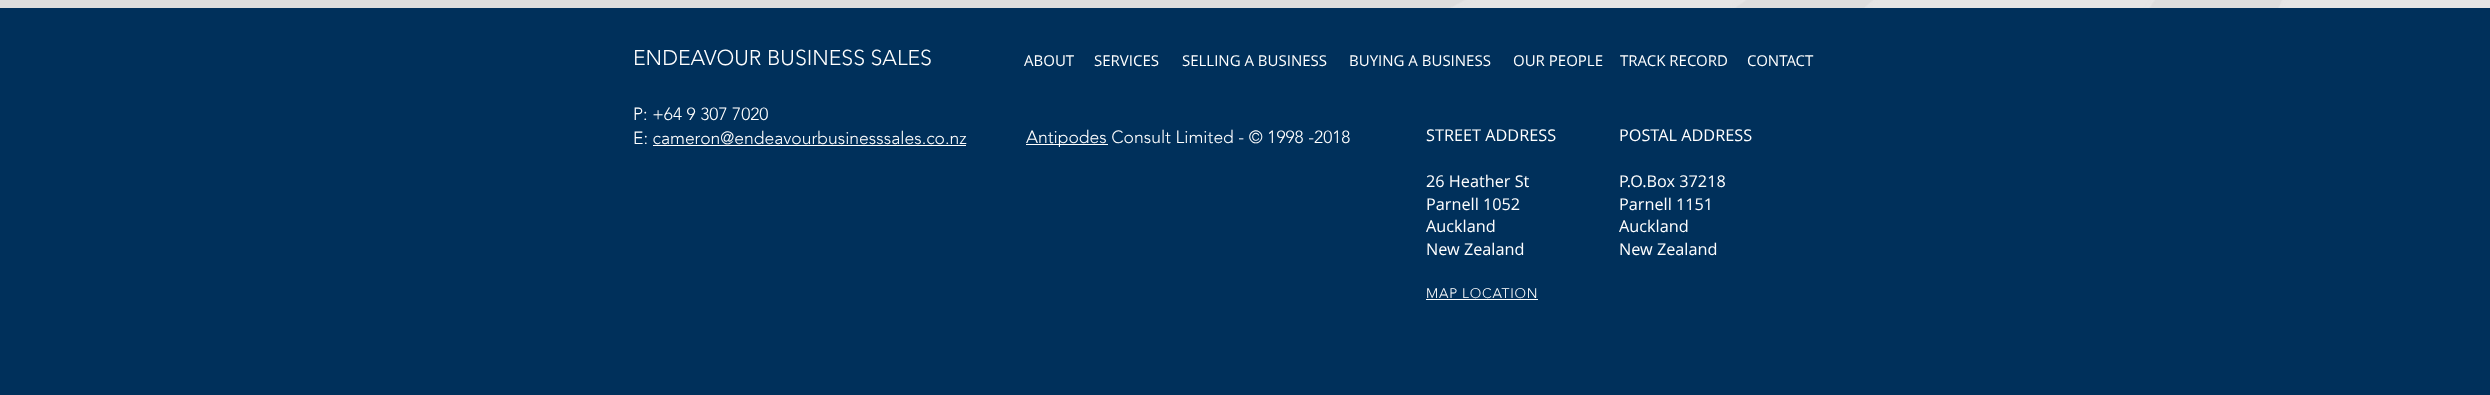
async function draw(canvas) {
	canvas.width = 2490;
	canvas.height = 395;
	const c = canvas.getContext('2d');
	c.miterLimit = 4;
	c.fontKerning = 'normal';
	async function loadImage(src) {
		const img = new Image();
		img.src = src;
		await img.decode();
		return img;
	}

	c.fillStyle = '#ddd';
	c.fillRect(0, 0, 2490, 395);
	c.drawImage(await loadImage('img1.png'), 1449, 0, 1041, 8);
	c.fillStyle = '#00305b';
	c.fillRect(0, 8, 2490, 387);
	c.font = '300 21.25px "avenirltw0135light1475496"';
	c.fillStyle = '#fff';
	c.fillText('ENDEAVOUR BUSINESS SALES', 633, 65);
	c.font = '300 17.5px "avenirltw0135light1475496"';
	c.fillText('P: +64 9 307 7020', 633, 120);
	c.fillText('E: cameron@endeavourbusinesssales.co.nz', 633, 144);
	c.fillRect(653, 145, 313, 1);
	c.font = '15px Open Sans';
	for (const [text, x, y] of [
		['ABOUT', 1024, 66],
		['SERVICES', 1094, 66],
		['SELLING A BUSINESS', 1182, 66],
		['BUYING A BUSINESS', 1349, 66],
		['OUR PEOPLE', 1513, 66],
		['TRACK RECORD', 1620, 66],
		['CONTACT', 1747, 66],
	]) {
		c.fillText(text, x, y);
	}
	c.fillRect(1026, 144, 82, 1);
	c.font = '300 17.5px "avenirltw0135light1475496"';
	c.fillText('Antipodes Consult Limited - © 1998 -2018', 1026, 143);
	c.font = '16.25px Open Sans';
	for (const [text, x, y] of [
		['STREET ADDRESS', 1426, 141],
		['26 Heather St', 1426, 187],
		['Parnell 1052', 1426, 210],
		['Auckland', 1426, 232],
		['New Zealand', 1426, 255],
		['POSTAL ADDRESS', 1619, 141],
		['P.O.Box 37218', 1619, 187],
		['Parnell 1151', 1619, 210],
		['Auckland', 1619, 232],
		['New Zealand', 1619, 255],
	]) {
		c.fillText(text, x, y);
	}
	c.letterSpacing = '0.75px';
	c.font = '300 13.75px "avenirltw0135light1475496"';
	c.fillText('MAP LOCATION', 1426, 298);
	c.fillRect(1426, 299, 112, 1);
}

draw(document.querySelector('canvas'));
